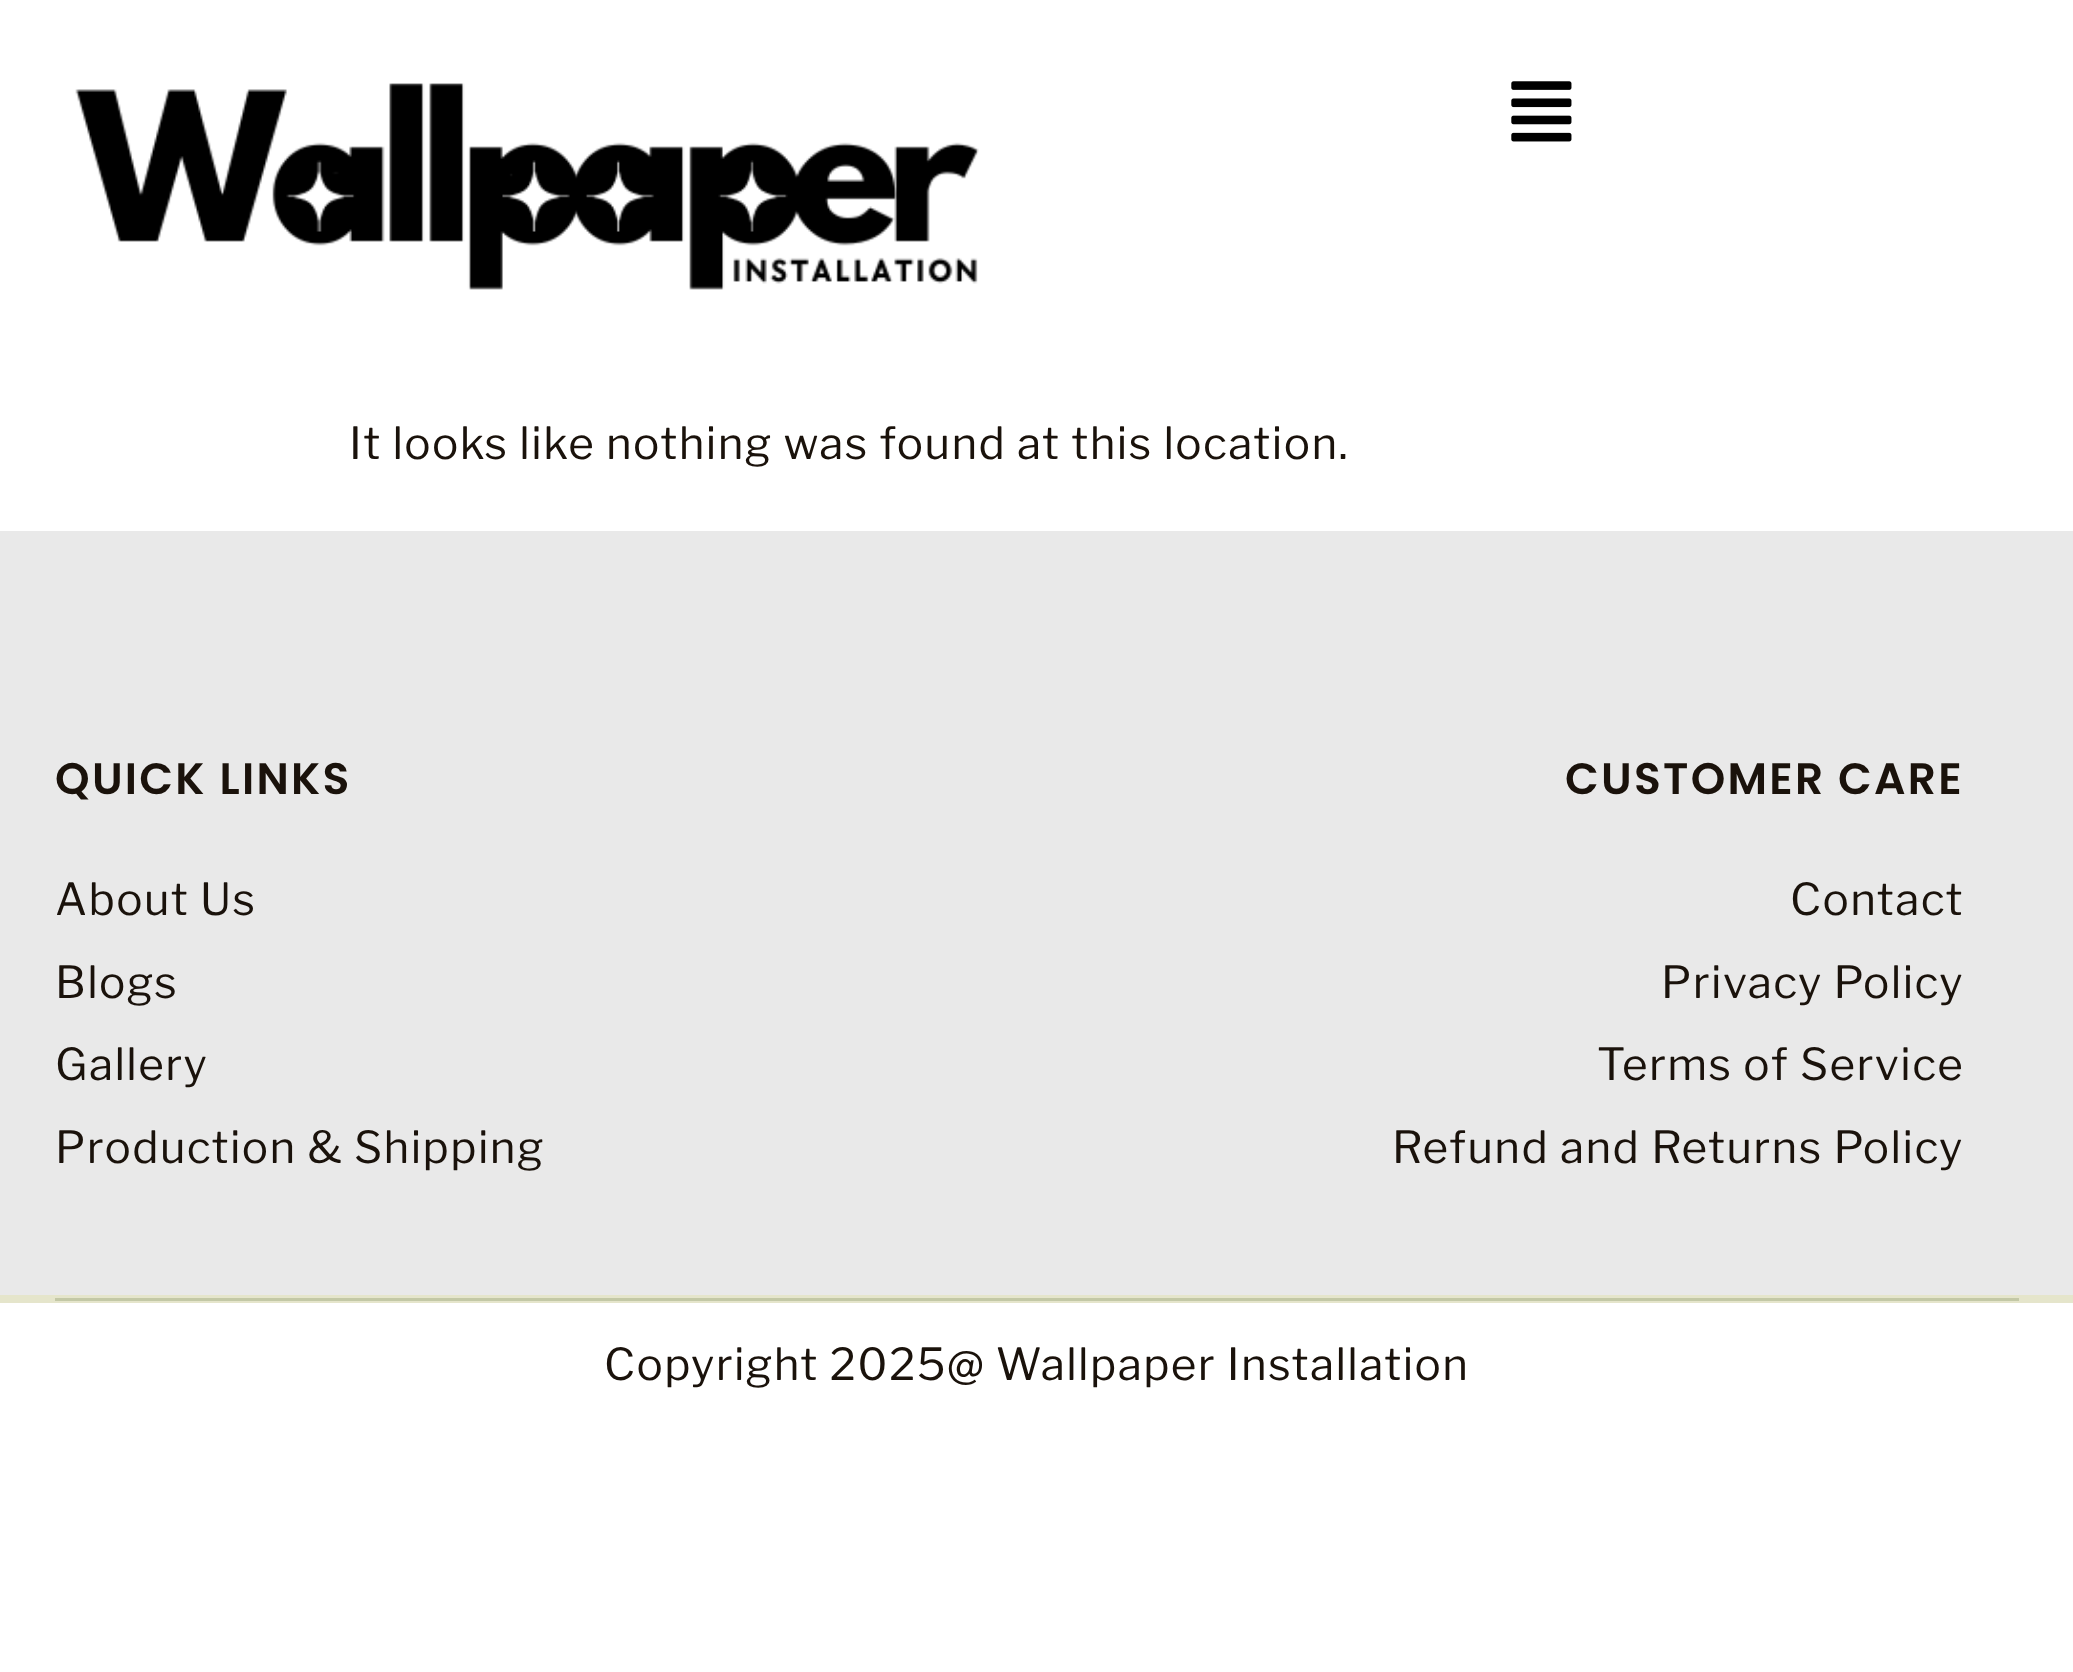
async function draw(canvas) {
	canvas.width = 2073;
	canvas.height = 1672;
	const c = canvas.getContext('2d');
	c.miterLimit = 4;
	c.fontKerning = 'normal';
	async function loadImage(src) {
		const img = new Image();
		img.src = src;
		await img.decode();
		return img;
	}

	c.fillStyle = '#fff';
	c.fillRect(0, 0, 2073, 1672);
	c.drawImage(await loadImage('img1.png'), 75, 83, 904, 207);
	c.drawImage(await loadImage('img2.png'), 1511, 81, 61, 61);
	c.letterSpacing = '1.4px';
	c.font = '44px Libre Franklin';
	c.fillStyle = '#1a120b';
	c.fillText('It looks like nothing was found at this location.', 349, 459);
	c.fillStyle = '#e9e9e9';
	c.fillRect(0, 531, 2073, 764);
	c.letterSpacing = '2.25px';
	c.font = '600 44px Poppins';
	c.fillStyle = '#1a120b';
	c.fillText('QUICK LINKS', 55, 794);
	c.letterSpacing = '1.4px';
	c.font = '44px Libre Franklin';
	for (const [text, x, y] of [
		['About Us', 55, 915],
		['Blogs', 55, 998],
		['Gallery', 55, 1080],
		['Production & Shipping', 55, 1163],
	]) {
		c.fillText(text, x, y);
	}
	c.letterSpacing = '2.25px';
	c.font = '600 44px Poppins';
	c.fillText('CUSTOMER CARE', 1565, 794);
	c.letterSpacing = '1.4px';
	c.font = '44px Libre Franklin';
	for (const [text, x, y] of [
		['Contact', 1790, 915],
		['Privacy Policy', 1661, 998],
		['Terms of Service', 1597, 1080],
		['Refund and Returns Policy', 1392, 1163],
	]) {
		c.fillText(text, x, y);
	}
	c.fillStyle = '#e5e5cb';
	c.fillRect(0, 1295, 2073, 8);
	c.fillStyle = '#c3c8a6';
	c.fillRect(55, 1298, 1964, 3);
	c.fillStyle = '#1a120b';
	c.fillText('Copyright 2025@ Wallpaper Installation', 604, 1380);
}

draw(document.querySelector('canvas'));
